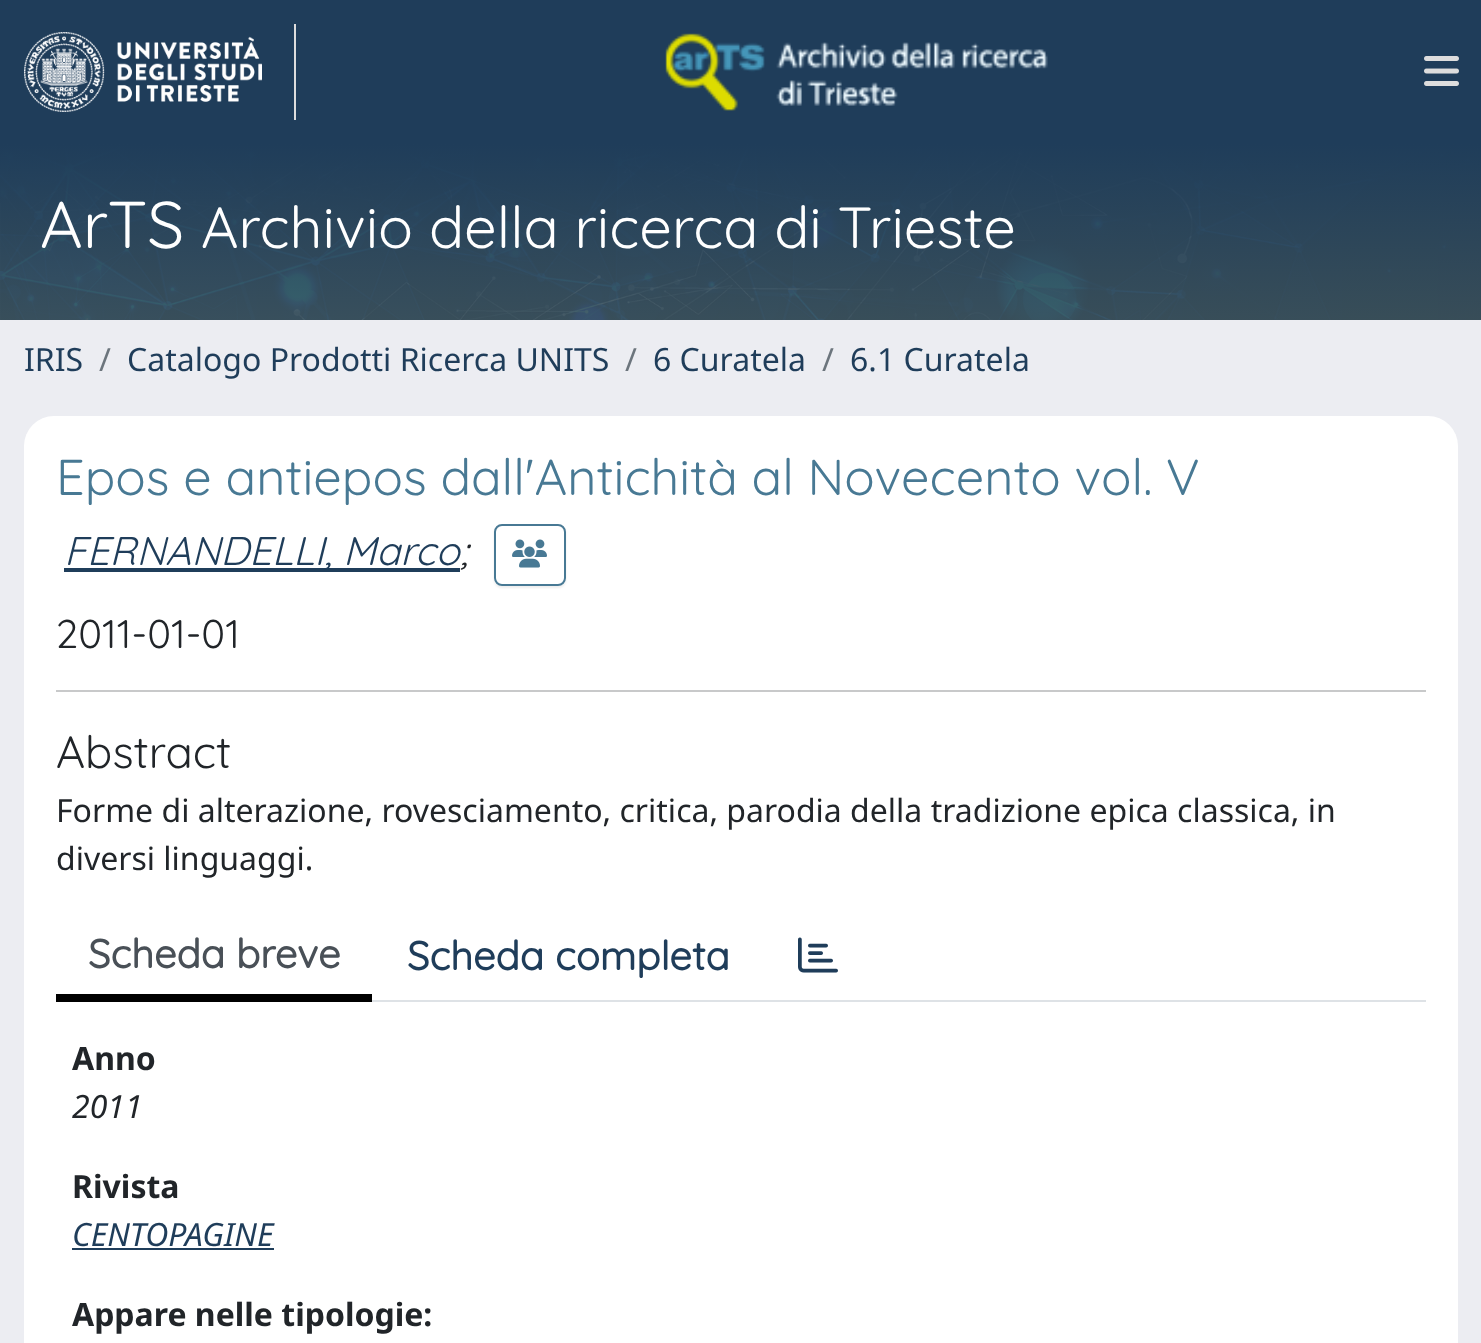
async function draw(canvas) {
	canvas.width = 1481;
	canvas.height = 1343;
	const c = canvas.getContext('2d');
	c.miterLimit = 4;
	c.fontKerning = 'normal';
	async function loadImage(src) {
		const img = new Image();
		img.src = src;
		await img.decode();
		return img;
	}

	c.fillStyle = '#ecedf2';
	c.fillRect(0, 0, 1481, 1343);
	c.fillStyle = '#1f3d5a';
	c.fillRect(0, 0, 1481, 144);
	c.fillStyle = '#ddd';
	c.fillRect(294, 24, 2, 96);
	c.drawImage(await loadImage('img1.png'), 24, 32, 238, 80);
	c.drawImage(await loadImage('img2.png'), 665, 33, 383, 78);
	c.drawImage(await loadImage('img3.png'), 1424, 56, 35, 30);
	c.drawImage(await loadImage('img4.png'), 0, 144, 1481, 176);
	c.font = '300 66px Quicksand';
	c.fillStyle = '#fff';
	c.fillText('ArTS', 40, 248);
	c.font = '300 58px Quicksand';
	c.fillText('Archivio della ricerca di Trieste', 201, 248);
	c.font = '32px Noto Sans';
	c.fillStyle = '#1f3d5a';
	c.fillText('IRIS', 24, 371);
	c.fillStyle = '#6c757d';
	c.fillText('/', 99, 371);
	c.fillStyle = '#1f3d5a';
	c.fillText('Catalogo Prodotti Ricerca UNITS', 127, 371);
	c.fillStyle = '#6c757d';
	c.fillText('/', 625, 371);
	c.fillStyle = '#1f3d5a';
	c.fillText('6 Curatela', 653, 371);
	c.fillStyle = '#6c757d';
	c.fillText('/', 822, 371);
	c.fillStyle = '#1f3d5a';
	c.fillText('6.1 Curatela', 850, 371);
	c.fillStyle = '#fff';
	c.beginPath();
	c.roundRect(24, 416, 1434, 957, 30);
	c.fill();
	c.font = '300 50.5px Quicksand';
	c.fillStyle = '#487994';
	c.fillText('Epos e antiepos dall\'Antichità al Novecento vol. V', 56, 495);
	c.fillStyle = '#1f3d5a';
	c.fillRect(64, 568, 396, 4);
	c.font = 'italic 300 40px Quicksand';
	c.fillText('FERNANDELLI, Marco', 64, 565);
	c.fillStyle = '#212529';
	c.fillText(';', 460, 565);
	c.save();
	c.beginPath();
	c.moveTo(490, 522);
	c.lineTo(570, 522);
	c.lineTo(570, 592);
	c.lineTo(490, 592);
	c.closePath();
	c.moveTo(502, 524);
	c.lineTo(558, 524);
	c.bezierCurveTo(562.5, 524, 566, 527.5, 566, 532);
	c.lineTo(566, 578);
	c.bezierCurveTo(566, 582.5, 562.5, 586, 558, 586);
	c.lineTo(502, 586);
	c.bezierCurveTo(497.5, 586, 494, 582.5, 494, 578);
	c.lineTo(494, 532);
	c.bezierCurveTo(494, 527.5, 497.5, 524, 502, 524);
	c.closePath();
	c.clip('evenodd');
	c.fillStyle = '#00000012';
	c.filter = 'blur(1px)';
	c.beginPath();
	c.roundRect(494, 526, 72, 62, 8);
	c.fill();
	c.filter = 'none';
	c.restore();
	c.beginPath();
	c.roundRect(495, 525, 70, 60, 7);
	c.strokeStyle = '#487994';
	c.lineWidth = 2;
	c.stroke();
	c.drawImage(await loadImage('img5.png'), 512, 539, 35, 29);
	c.font = '300 40px Quicksand';
	c.fillText('2011-01-01', 56, 648);
	c.fillStyle = '#c8c9ca';
	c.fillRect(56, 690, 1370, 2);
	c.font = '300 45px Quicksand';
	c.fillStyle = '#212529';
	c.fillText('Abstract', 56, 768);
	c.font = '32px Noto Sans';
	c.fillText('Forme di alterazione, rovesciamento, critica, parodia della tradizione epica classica, in', 56, 822);
	c.fillText('diversi linguaggi.', 56, 870);
	c.fillStyle = '#dee2e6';
	c.fillRect(372, 1000, 1054, 2);
	c.fillStyle = '#000';
	c.fillRect(56, 994, 316, 8);
	c.font = 'bold 40px Quicksand';
	c.fillStyle = '#495057';
	c.fillText('Scheda breve', 88, 968);
	c.fillStyle = '#1f3d5a';
	c.fillText('Scheda completa', 407, 970);
	c.drawImage(await loadImage('img6.png'), 798, 937, 40, 36);
	c.font = 'bold 32px Noto Sans';
	c.fillStyle = '#212529';
	c.fillText('Anno', 72, 1070);
	c.font = 'italic 32px Noto Sans';
	c.fillText('2011', 72, 1118);
	c.font = 'bold 32px Noto Sans';
	c.fillText('Rivista', 72, 1198);
	c.font = 'italic 32px Noto Sans';
	c.fillStyle = '#1f3d5a';
	c.fillText('CENTOPAGINE', 72, 1246);
	c.fillRect(72, 1248, 202, 2);
	c.font = 'bold 32px Noto Sans';
	c.fillStyle = '#212529';
	c.fillText('Appare nelle tipologie:', 72, 1326);
}

draw(document.querySelector('canvas'));
